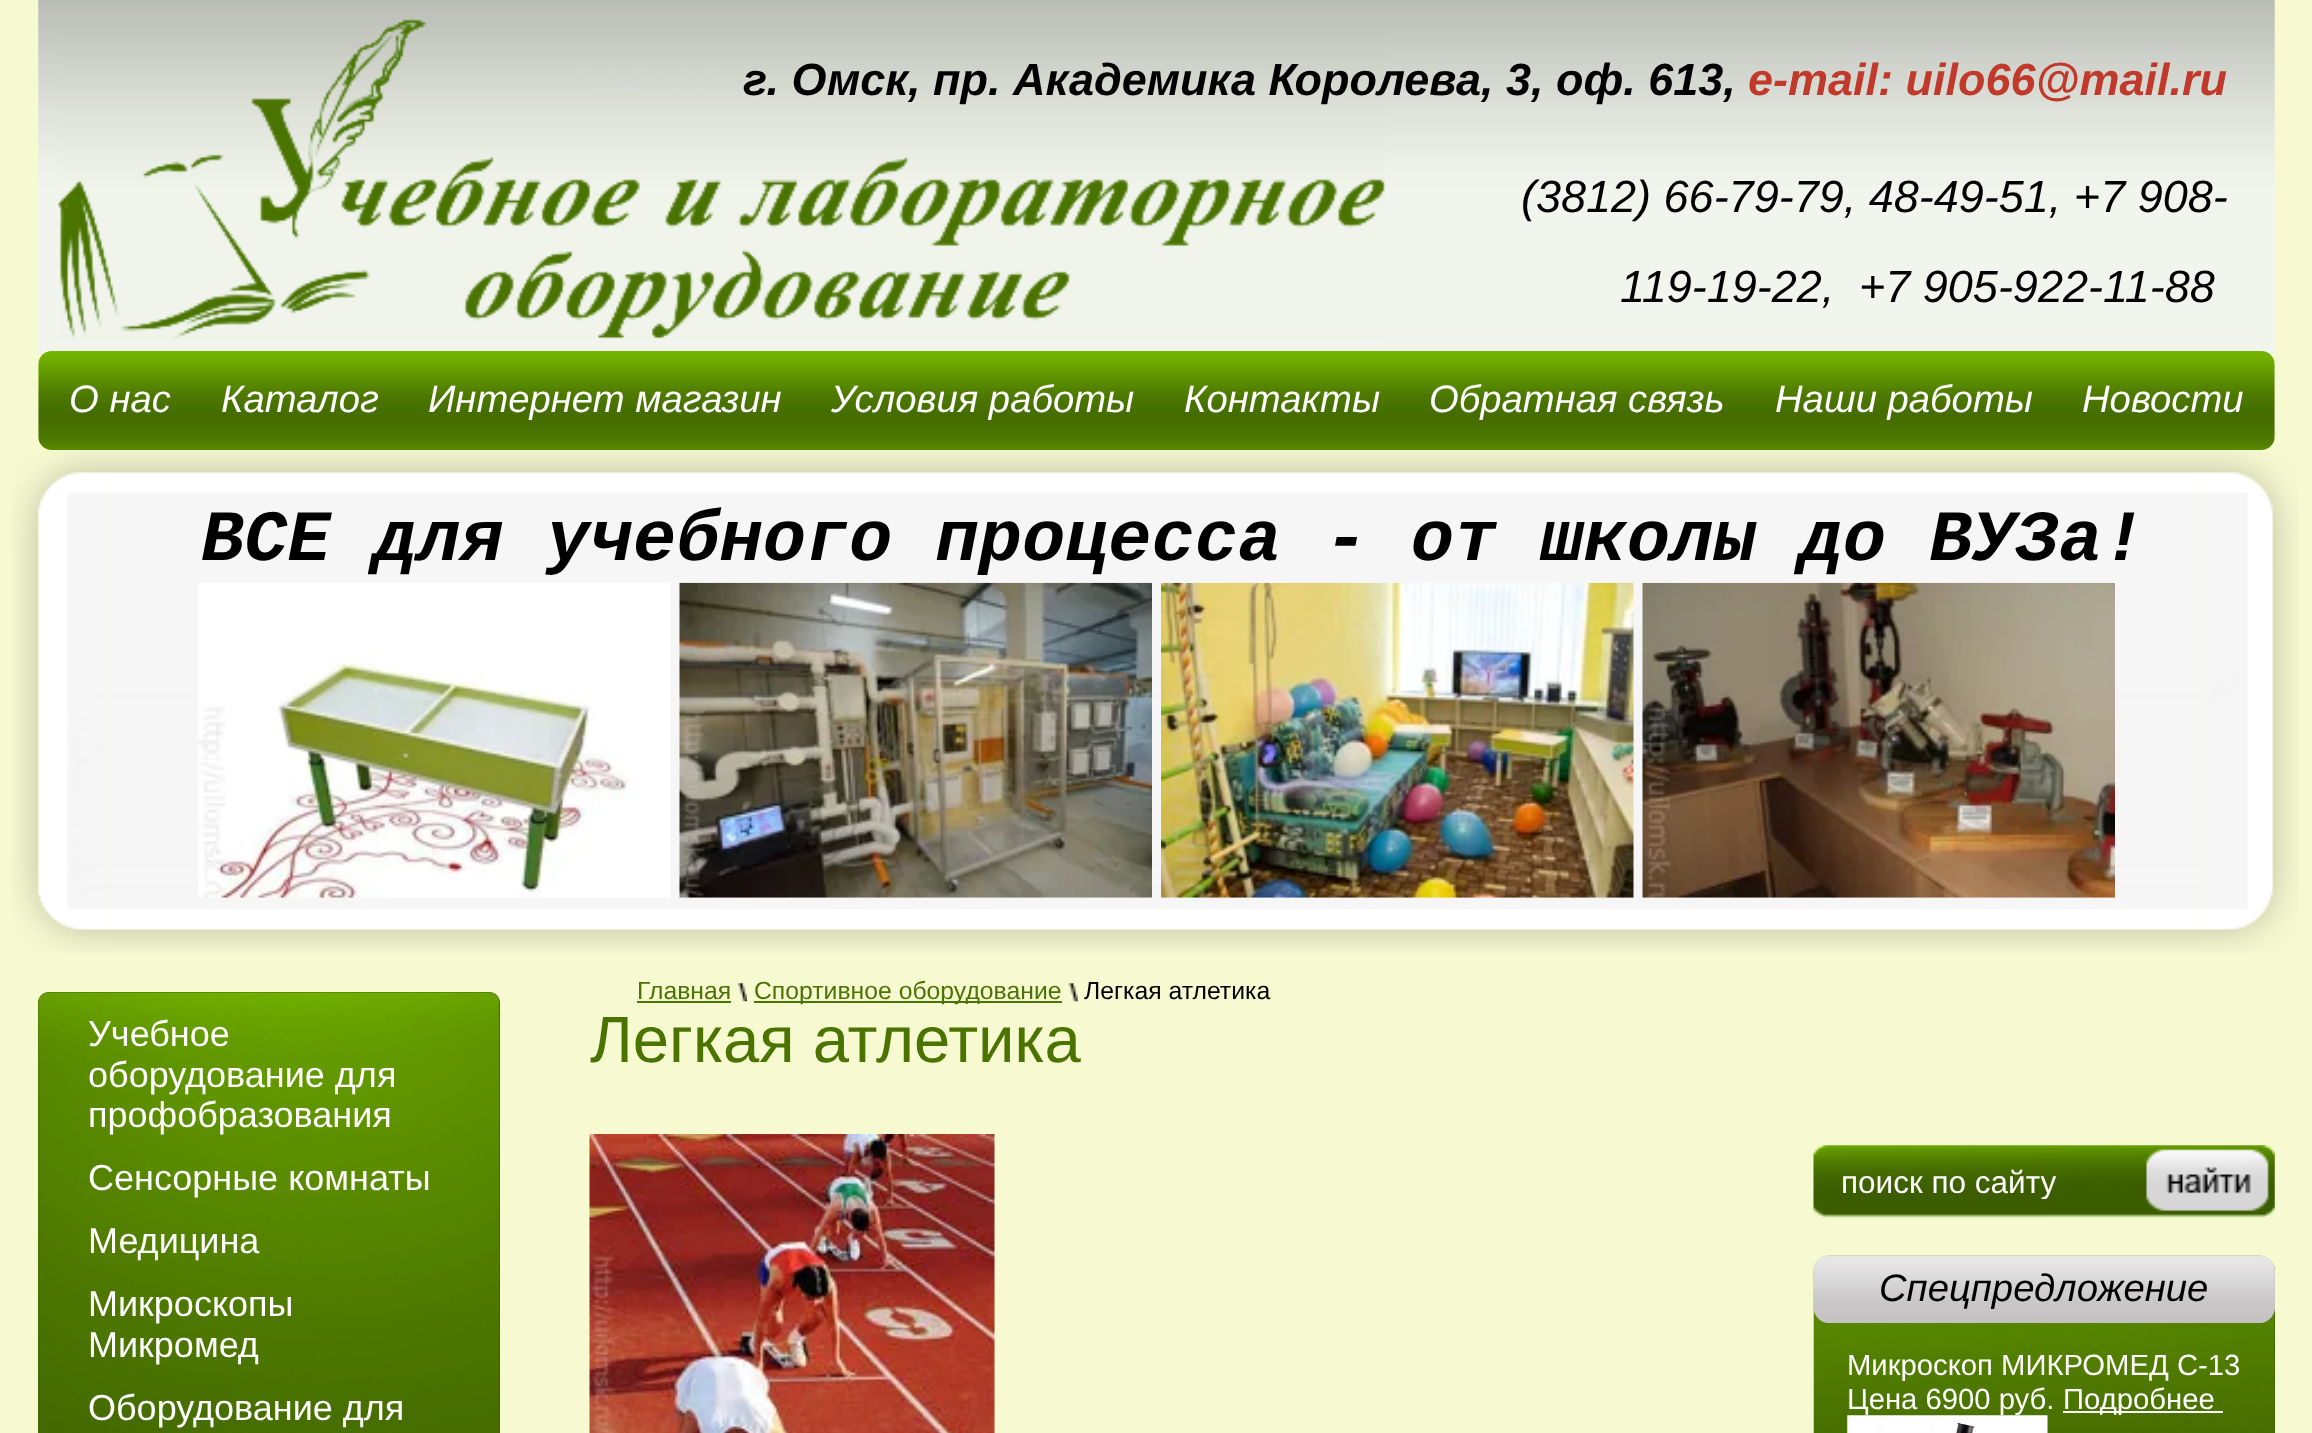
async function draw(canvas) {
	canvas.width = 2312;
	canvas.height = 1433;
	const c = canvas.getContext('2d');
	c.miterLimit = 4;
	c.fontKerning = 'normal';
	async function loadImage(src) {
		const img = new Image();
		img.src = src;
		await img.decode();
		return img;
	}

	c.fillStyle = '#f7f9d1';
	c.fillRect(0, 0, 2312, 1433);
	c.drawImage(await loadImage('img1.png'), 38, 0, 2237, 354);
	c.drawImage(await loadImage('img2.png'), 58, 18, 1328, 322);
	c.font = 'italic bold 45px Liberation Sans';
	c.fillStyle = '#000';
	c.fillText('г. Омск, пр. Академика Королева, 3, оф. 613,', 743, 95);
	c.fillStyle = '#c0392b';
	c.fillText('е-mail: uilo66@mail.ru', 1748, 95);
	c.font = 'italic 45px Liberation Sans';
	c.fillStyle = '#000';
	for (const [text, x, y] of [
		['(3812) 66-79-79, 48-49-51, +7 908-', 1521, 212],
		['119-19-22,', 1620, 302],
		['+7 905-922-11-88', 1859, 302],
	]) {
		c.fillText(text, x, y);
	}
	c.drawImage(await loadImage('img3.png'), 38, 351, 2237, 99);
	c.font = 'italic 38.25px Liberation Sans';
	c.fillStyle = '#fff';
	for (const [text, x, y] of [
		['О нас', 69, 412],
		['Каталог', 221, 412],
		['Интернет магазин', 428, 412],
		['Условия работы', 831, 412],
		['Контакты', 1184, 412],
		['Обратная связь', 1429, 412],
		['Наши работы', 1775, 412],
		['Новости', 2082, 412],
	]) {
		c.fillText(text, x, y);
	}
	c.drawImage(await loadImage('img4.png'), 12, 450, 99, 503);
	c.drawImage(await loadImage('img6.png'), 2202, 450, 97, 503);
	c.drawImage(await loadImage('img5.png'), 110, 450, 2093, 503);
	c.font = 'italic bold 72px Liberation Mono';
	c.fillStyle = '#000';
	c.fillText('ВСЕ для учебного процесса - от школы до ВУЗа!', 201, 560);
	c.drawImage(await loadImage('img7.png'), 198, 583, 473, 315);
	c.drawImage(await loadImage('img8.png'), 679, 582, 473, 316);
	c.drawImage(await loadImage('img9.png'), 1161, 582, 473, 316);
	c.drawImage(await loadImage('img10.png'), 1642, 582, 473, 316);
	c.fillStyle = '#3d5e00';
	c.beginPath();
	c.roundRect(38, 992, 462, 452, 11);
	c.fill();
	c.drawImage(await loadImage('img11.png'), 38, 992, 462, 441);
	c.font = '36px Liberation Sans';
	c.fillStyle = '#fff';
	for (const [text, x, y] of [
		['Учебное', 88, 1046],
		['оборудование для', 88, 1087],
		['профобразования', 88, 1127],
		['Сенсорные комнаты', 88, 1190],
		['Медицина', 88, 1253],
		['Микроскопы', 88, 1316],
		['Микромед', 88, 1357],
		['Оборудование для', 88, 1420],
	]) {
		c.fillText(text, x, y);
	}
	c.font = '24.75px Liberation Sans';
	c.fillStyle = '#4a7300';
	c.fillText('Главная', 637, 999);
	c.fillRect(637, 1001, 94, 2);
	c.drawImage(await loadImage('img12.png'), 738, 983, 9, 19);
	c.fillRect(754, 1001, 308, 2);
	c.fillText('Спортивное оборудование', 754, 999);
	c.drawImage(await loadImage('img13.png'), 1068, 983, 10, 19);
	c.fillStyle = '#000';
	c.fillText('Легкая атлетика', 1084, 999);
	c.font = '65.25px Liberation Sans';
	c.fillStyle = '#4a7300';
	c.fillText('Легкая атлетика', 590, 1062);
	c.drawImage(await loadImage('img14.png'), 589, 1134, 406, 299);
	c.drawImage(await loadImage('img15.png'), 1813, 1145, 462, 73);
	c.save();
	c.beginPath();
	c.rect(1841, 1163, 292, 36);
	c.clip();
	c.font = '31.5px Liberation Sans';
	c.fillStyle = '#fff';
	c.fillText('поиск по сайту', 1841, 1193);
	c.restore();
	c.fillStyle = '#3c5c00';
	c.beginPath();
	c.roundRect(1814, 1256, 461, 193, 16);
	c.fill();
	c.drawImage(await loadImage('img16.png'), 1813, 1255, 462, 178);
	c.fillStyle = '#c4c2c3';
	c.beginPath();
	c.roundRect(1814, 1256, 461, 67, 16);
	c.fill();
	c.drawImage(await loadImage('img17.png'), 1813, 1255, 462, 68);
	c.font = 'italic 38.25px Liberation Sans';
	c.fillStyle = '#000';
	c.fillText('Спецпредложение', 1879, 1301);
	c.font = '29.25px Liberation Sans';
	c.fillStyle = '#fff';
	c.fillText('Микроскоп МИКРОМЕД С-13', 1847, 1375);
	c.fillText('Цена 6900 руб.', 1847, 1409);
	c.fillRect(2063, 1411, 160, 2);
	c.fillText('Подробнее', 2063, 1409);
	c.drawImage(await loadImage('img18.png'), 1847, 1415, 201, 18);
}

draw(document.querySelector('canvas'));
